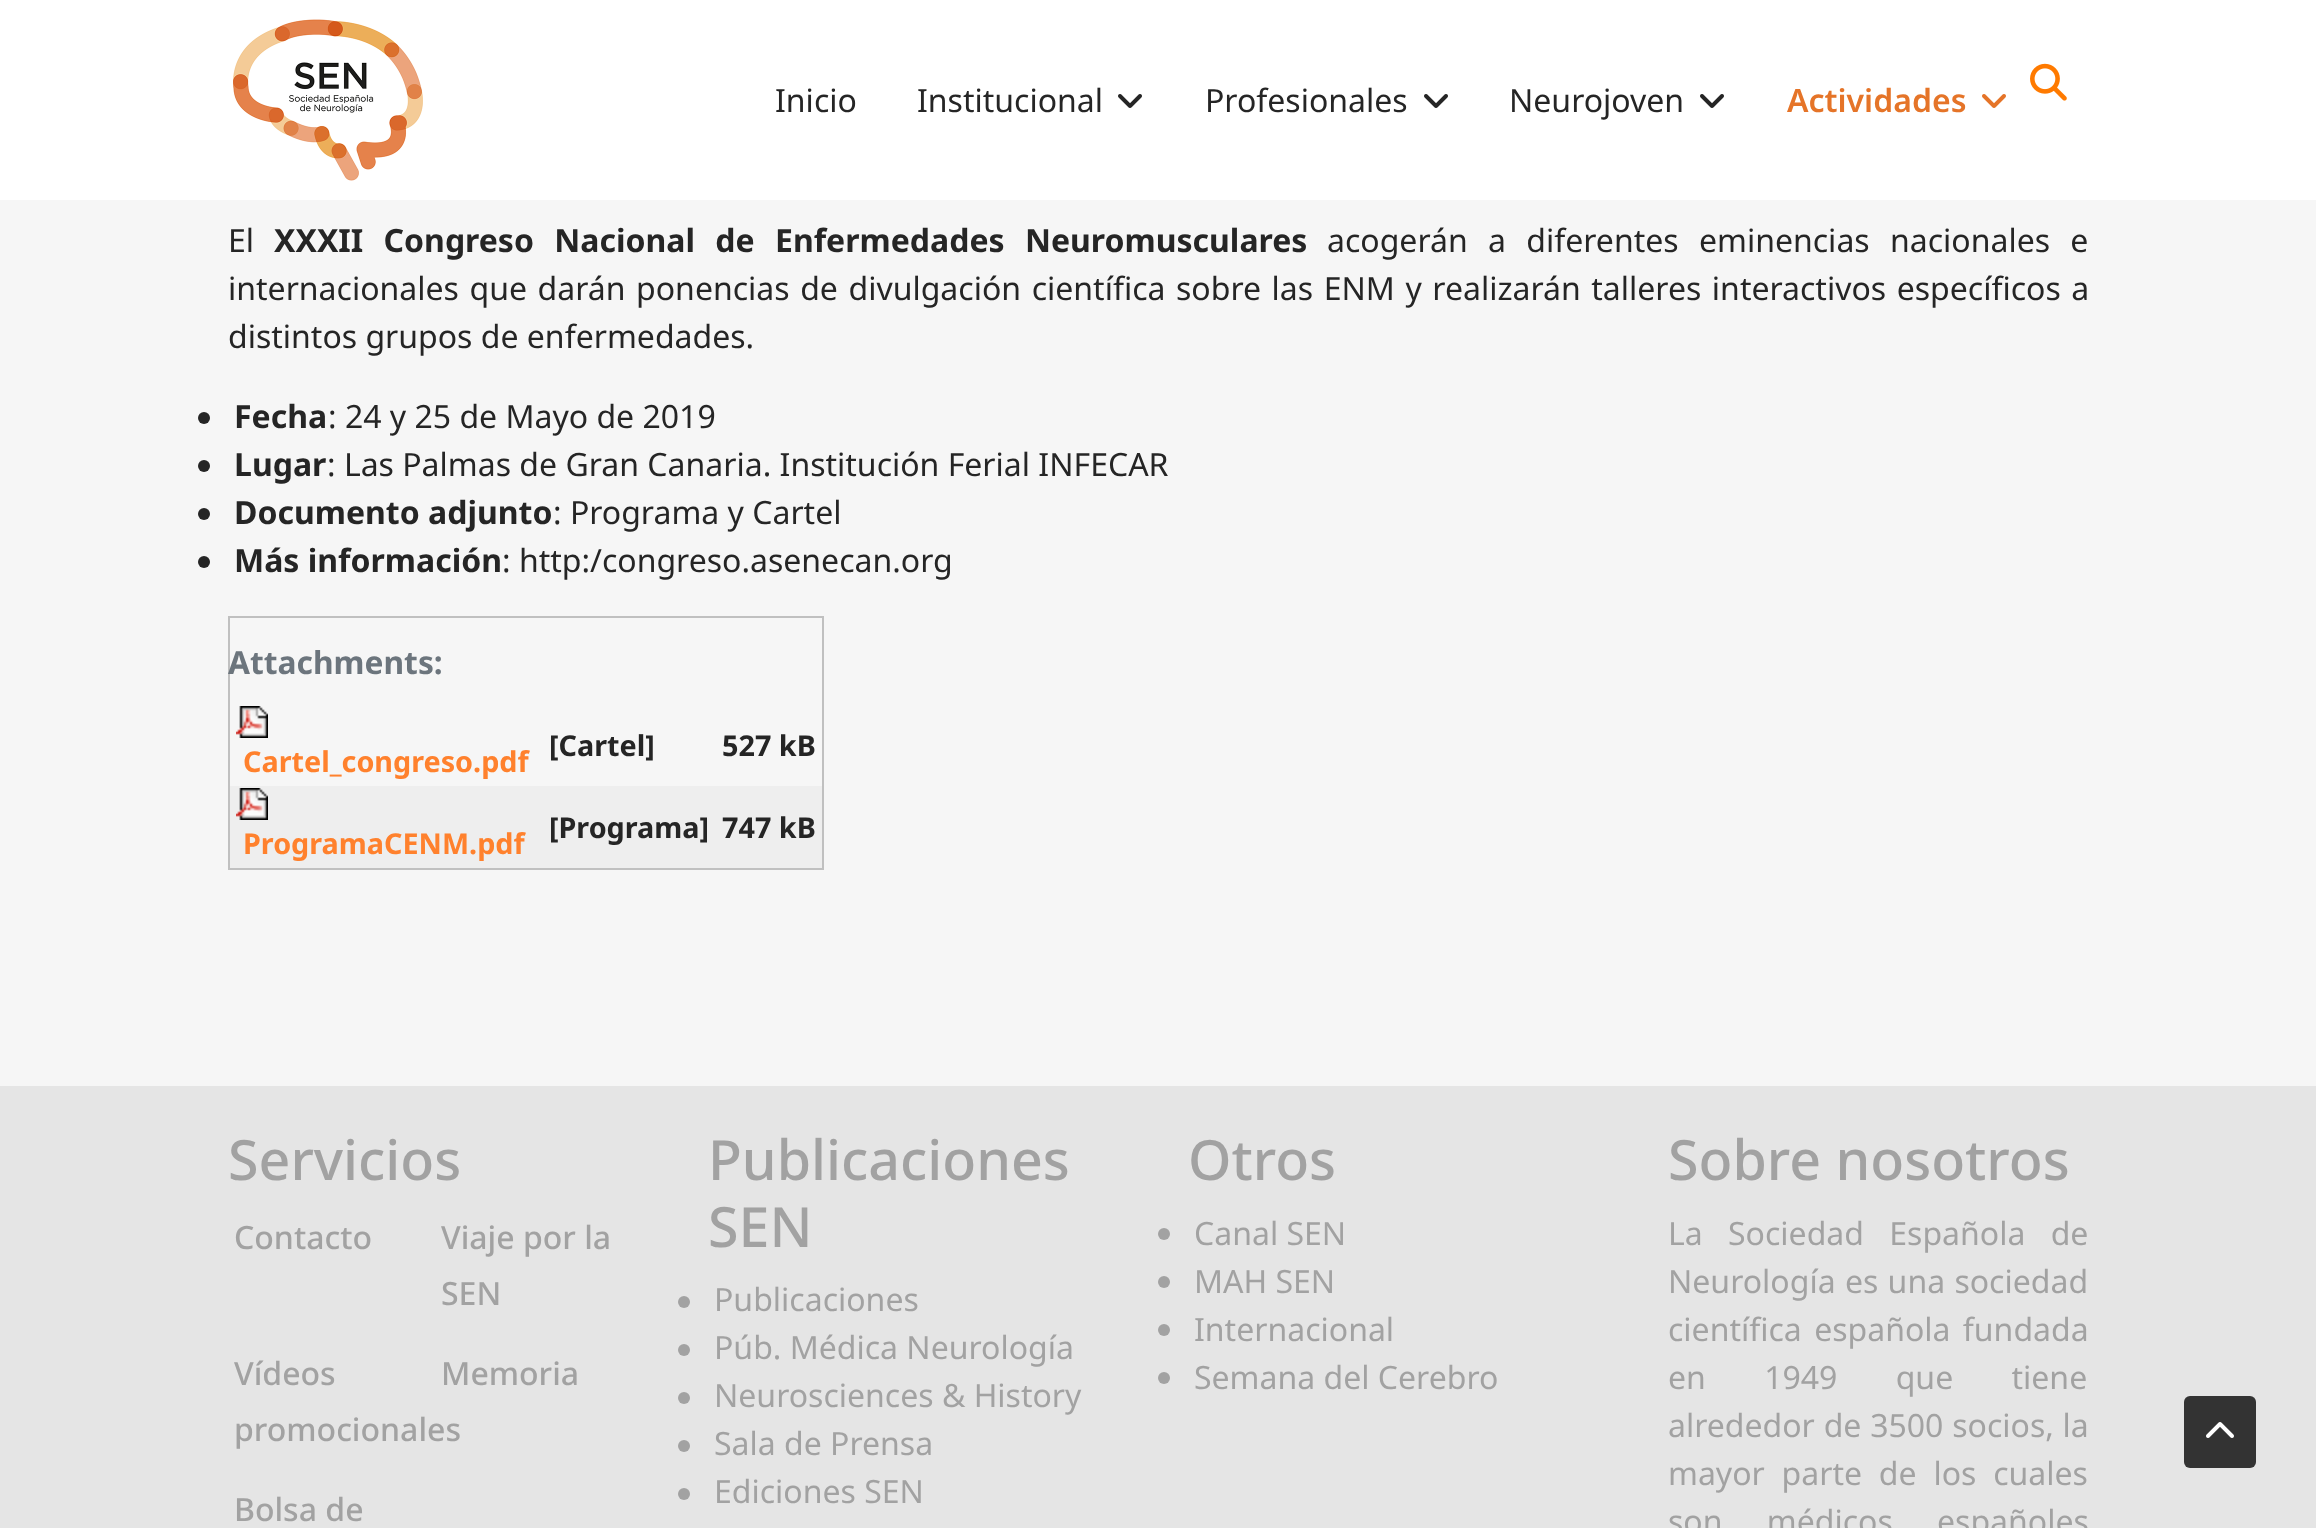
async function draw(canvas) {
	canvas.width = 2316;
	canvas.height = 1528;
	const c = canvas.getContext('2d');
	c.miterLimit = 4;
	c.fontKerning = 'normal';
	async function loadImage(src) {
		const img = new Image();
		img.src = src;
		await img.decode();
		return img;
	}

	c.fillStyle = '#f6f6f6';
	c.fillRect(0, 0, 2316, 1528);
	c.fillStyle = '#fff';
	c.fillRect(0, 0, 2316, 200);
	c.drawImage(await loadImage('img1.png'), 233, 19, 190, 162);
	c.font = '32px Noto Sans';
	c.fillStyle = '#252525';
	c.fillText('Inicio', 775, 112);
	c.fillText('Institucional', 917, 112);
	c.drawImage(await loadImage('img2.png'), 1118, 94, 24, 14);
	c.fillText('Profesionales', 1205, 112);
	c.drawImage(await loadImage('img2.png'), 1424, 94, 24, 14);
	c.fillText('Neurojoven', 1509, 112);
	c.drawImage(await loadImage('img2.png'), 1700, 94, 24, 14);
	c.font = '600 32px Noto Sans';
	c.fillStyle = '#e57428';
	c.fillText('Actividades', 1787, 112);
	c.drawImage(await loadImage('img3.png'), 1982, 94, 24, 14);
	c.drawImage(await loadImage('img4.png'), 2030, 63, 37, 38);
	c.font = '32px Noto Sans';
	c.fillStyle = '#252525';
	c.fillText('El', 228, 252);
	c.wordSpacing = '12px';
	c.font = 'bold 32px Noto Sans';
	c.fillText('XXXII Congreso Nacional de Enfermedades Neuromusculares', 274, 252);
	c.font = '32px Noto Sans';
	c.fillText('acogerán a diferentes eminencias nacionales e', 1327, 252);
	c.wordSpacing = '2.25px';
	c.fillText('internacionales que darán ponencias de divulgación científica sobre las ENM y realizarán talleres interactivos específicos a', 228, 300);
	c.wordSpacing = '0px';
	c.fillText('distintos grupos de enfermedades.', 228, 348);
	c.beginPath();
	c.arc(204, 418, 6, 0, 2 * Math.PI);
	c.fill();
	c.font = 'bold 32px Noto Sans';
	c.fillText('Fecha', 234, 428);
	c.font = '32px Noto Sans';
	c.fillText(': 24 y 25 de Mayo de 2019', 328, 428);
	c.beginPath();
	c.arc(204, 466, 6, 0, 2 * Math.PI);
	c.fill();
	c.font = 'bold 32px Noto Sans';
	c.fillText('Lugar', 234, 476);
	c.font = '32px Noto Sans';
	c.fillText(': Las Palmas de Gran Canaria. Institución Ferial INFECAR', 327, 476);
	c.beginPath();
	c.arc(204, 514, 6, 0, 2 * Math.PI);
	c.fill();
	c.font = 'bold 32px Noto Sans';
	c.fillText('Documento adjunto', 234, 524);
	c.font = '32px Noto Sans';
	c.fillText(': Programa y Cartel', 553, 524);
	c.beginPath();
	c.arc(204, 562, 6, 0, 2 * Math.PI);
	c.fill();
	c.font = 'bold 32px Noto Sans';
	c.fillText('Más información', 234, 572);
	c.font = '32px Noto Sans';
	c.fillText(': http:/congreso.asenecan.org', 502, 572);
	for (const [x, y, w, h, color] of [
		[228, 616, 596, 2, '#c0c0c0'],
		[822, 616, 2, 254, '#c0c0c0'],
		[228, 868, 596, 2, '#c0c0c0'],
		[228, 616, 2, 254, '#c0c0c0'],
	]) {
		c.fillStyle = color;
		c.fillRect(x, y, w, h);
	}
	c.font = 'bold 31.75px Noto Sans';
	c.fillStyle = '#6c757d';
	c.fillText('Attachments:', 228, 674);
	c.font = 'bold 28.75px Noto Sans';
	c.fillStyle = '#252525';
	c.fillText('[Cartel]', 549, 756);
	c.fillText('527 kB', 722, 756);
	c.drawImage(await loadImage('img5.png'), 236, 706, 32, 32);
	c.fillStyle = '#ff812d';
	c.fillText('Cartel_congreso.pdf', 243, 772);
	c.fillStyle = '#eee';
	c.fillRect(230, 786, 592, 82);
	c.drawImage(await loadImage('img6.png'), 236, 788, 32, 32);
	c.fillStyle = '#ff812d';
	c.fillText('ProgramaCENM.pdf', 243, 854);
	c.fillStyle = '#252525';
	c.fillText('[Programa]', 549, 838);
	c.fillText('747 kB', 722, 838);
	c.fillStyle = '#e5e5e5';
	c.fillRect(0, 1086, 2316, 442);
	c.font = '500 55.5px Noto Sans';
	c.fillStyle = '#a2a2a2';
	c.fillText('Servicios', 228, 1180);
	c.font = '500 32px Noto Sans';
	for (const [text, x, y] of [
		['Contacto', 234, 1249],
		['Viaje por la', 441, 1249],
		['SEN', 441, 1305],
		['Vídeos', 234, 1385],
		['promocionales', 234, 1441],
		['Memoria', 441, 1385],
		['Bolsa de', 234, 1521],
	]) {
		c.fillText(text, x, y);
	}
	c.font = '500 55.5px Noto Sans';
	c.fillText('Publicaciones', 708, 1180);
	c.fillText('SEN', 708, 1247);
	c.beginPath();
	c.arc(684, 1302, 6, 0, 2 * Math.PI);
	c.fill();
	c.font = '32px Noto Sans';
	c.fillText('Publicaciones', 714, 1311);
	c.beginPath();
	c.arc(684, 1350, 6, 0, 2 * Math.PI);
	c.fill();
	c.fillText('Púb. Médica Neurología', 714, 1359);
	c.beginPath();
	c.arc(684, 1398, 6, 0, 2 * Math.PI);
	c.fill();
	c.fillText('Neurosciences & History', 714, 1407);
	c.beginPath();
	c.arc(684, 1446, 6, 0, 2 * Math.PI);
	c.fill();
	c.fillText('Sala de Prensa', 714, 1455);
	c.beginPath();
	c.arc(684, 1494, 6, 0, 2 * Math.PI);
	c.fill();
	c.fillText('Ediciones SEN', 714, 1503);
	c.font = '500 55.5px Noto Sans';
	c.fillText('Otros', 1188, 1180);
	c.beginPath();
	c.arc(1164, 1234, 6, 0, 2 * Math.PI);
	c.fill();
	c.font = '32px Noto Sans';
	c.fillText('Canal SEN', 1194, 1245);
	c.beginPath();
	c.arc(1164, 1282, 6, 0, 2 * Math.PI);
	c.fill();
	c.fillText('MAH SEN', 1194, 1293);
	c.beginPath();
	c.arc(1164, 1330, 6, 0, 2 * Math.PI);
	c.fill();
	c.fillText('Internacional', 1194, 1341);
	c.beginPath();
	c.arc(1164, 1378, 6, 0, 2 * Math.PI);
	c.fill();
	c.fillText('Semana del Cerebro', 1194, 1389);
	c.font = '500 55.5px Noto Sans';
	c.fillText('Sobre nosotros', 1668, 1180);
	c.wordSpacing = '17px';
	c.font = '32px Noto Sans';
	c.fillText('La Sociedad Española de', 1668, 1245);
	c.wordSpacing = '1px';
	c.fillText('Neurología es una sociedad', 1668, 1293);
	c.wordSpacing = '4px';
	c.fillText('científica española fundada', 1668, 1341);
	c.wordSpacing = '50px';
	c.fillText('en 1949 que tiene', 1668, 1389);
	c.wordSpacing = '0.5px';
	c.fillText('alrededor de 3500 socios, la', 1668, 1437);
	c.wordSpacing = '8.5px';
	c.fillText('mayor parte de los cuales', 1668, 1485);
	c.wordSpacing = '36px';
	c.fillText('son médicos españoles', 1668, 1533);
	c.fillStyle = '#333';
	c.beginPath();
	c.roundRect(2184, 1396, 72, 72, 6);
	c.fill();
	c.drawImage(await loadImage('img7.png'), 2206, 1422, 28, 16);
}

draw(document.querySelector('canvas'));
